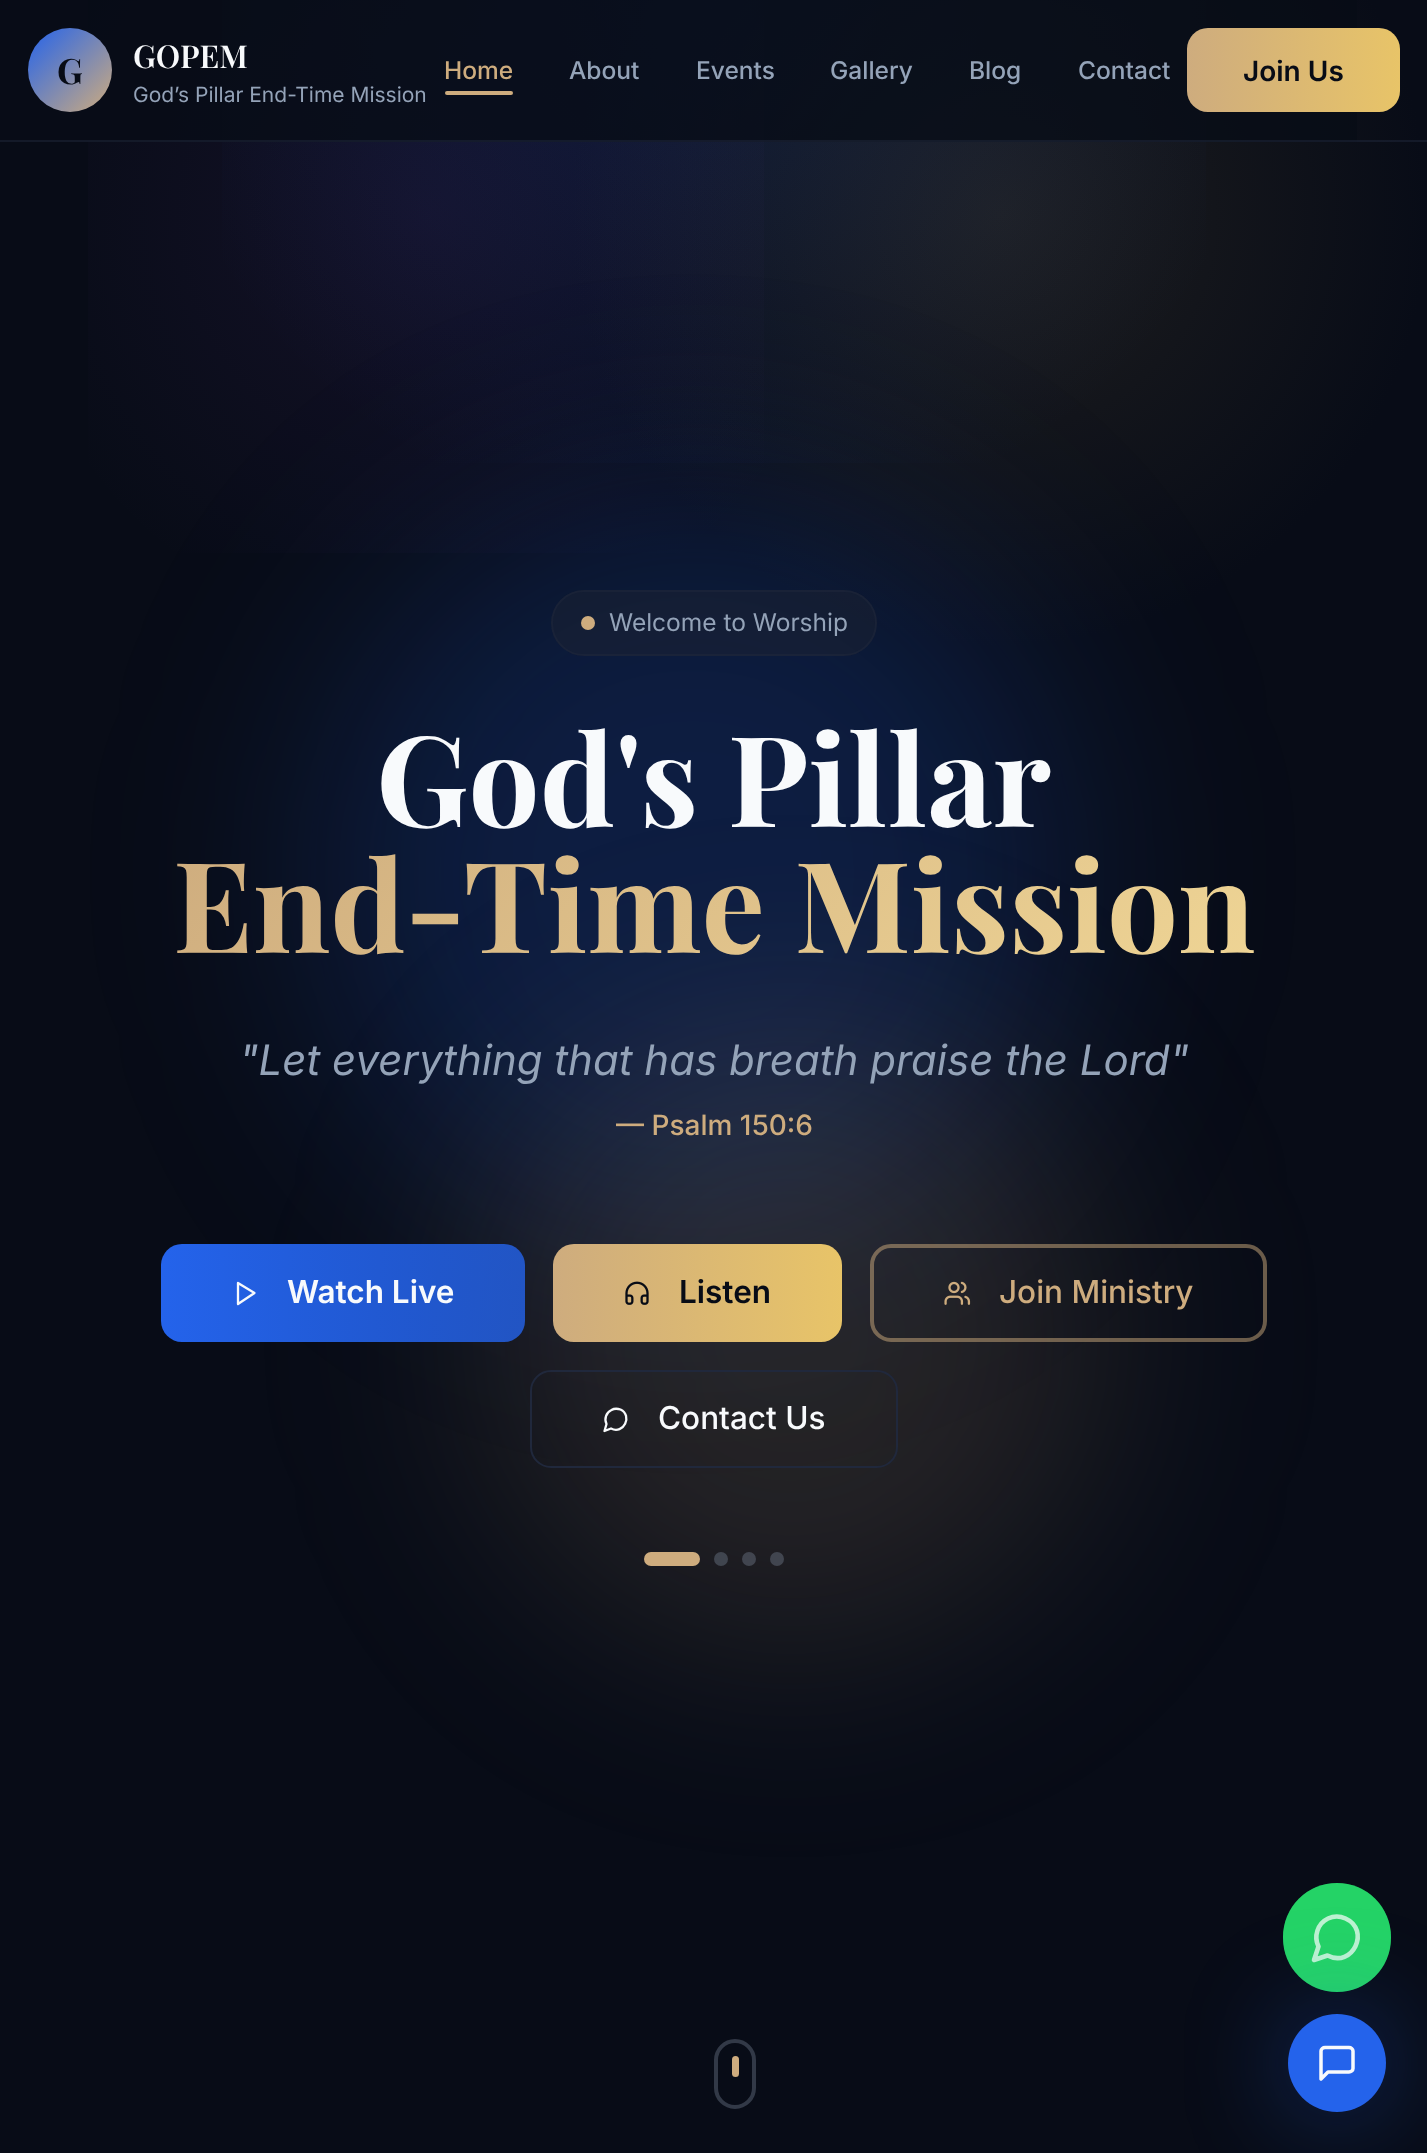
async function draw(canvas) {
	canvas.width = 1427;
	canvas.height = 2153;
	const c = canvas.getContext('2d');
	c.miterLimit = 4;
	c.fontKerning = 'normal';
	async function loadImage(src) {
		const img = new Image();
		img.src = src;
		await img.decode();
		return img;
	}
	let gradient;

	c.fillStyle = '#fff';
	c.fillRect(0, 0, 1427, 2153);
	gradient = c.createRadialGradient(1000, 213.75, 0, 1000, 213.75, 857);
	gradient.addColorStop(0, '#1e1e1f');
	gradient.addColorStop(0.5, '#080c17');
	c.fillStyle = gradient;
	c.beginPath();
	c.rect(0, 0, 1427, 2153);
	c.save();
	c.clip();
	c.scale(1, 862 / 857);
	c.fillRect(0, 0, 1427, 2141);
	c.restore();
	gradient = c.createRadialGradient(428, 213.75, 0, 428, 213.75, 857);
	gradient.addColorStop(0, '#8040bf1a');
	gradient.addColorStop(0.5, '#8040bf00');
	c.fillStyle = gradient;
	c.beginPath();
	c.rect(88, 0, 676, 553);
	c.save();
	c.clip();
	c.scale(1, 862 / 857);
	c.fillRect(0, 0, 1427, 2141);
	c.restore();
	gradient = c.createRadialGradient(714, 0, 0, 714, 0, 1142);
	gradient.addColorStop(0, '#2463eb26');
	gradient.addColorStop(0.5, '#2463eb00');
	c.fillStyle = gradient;
	c.beginPath();
	c.rect(222, 0, 984, 463);
	c.save();
	c.clip();
	c.scale(1, 1077 / 1142);
	c.fillRect(0, 0, 1427, 2283);
	c.restore();
	c.fillStyle = '#080c16cc';
	c.fillRect(88, 0, 1269, 142);
	c.fillStyle = '#20283c80';
	c.fillRect(0, 140, 1427, 2);
	gradient = c.createLinearGradient(28, 28, 112, 112);
	gradient.addColorStop(0, '#2463eb');
	gradient.addColorStop(1, '#ceac7e');
	c.fillStyle = gradient;
	c.beginPath();
	c.arc(70, 70, 42, 0, 2 * Math.PI);
	c.fill();
	c.font = 'bold 35px Playfair Display';
	c.fillStyle = '#080c16';
	c.fillText('G', 57, 84);
	c.font = '600 31.5px Playfair Display';
	c.fillStyle = '#f8fafc';
	c.fillText('GOPEM', 133, 68);
	c.font = '21px Inter';
	c.fillStyle = '#94a3b8';
	c.fillText('God’s Pillar End-Time Mission', 133, 102);
	c.font = '500 24.5px Inter';
	c.fillStyle = '#ceac7e';
	c.fillText('Home', 444, 79);
	c.beginPath();
	c.roundRect(445, 91, 68, 4, 2);
	c.fill();
	c.fillStyle = '#94a3b8';
	for (const [text, x, y] of [
		['About', 569, 79],
		['Events', 696, 79],
		['Gallery', 830, 79],
		['Blog', 969, 79],
		['Contact', 1078, 79],
	]) {
		c.fillText(text, x, y);
	}
	gradient = c.createLinearGradient(1187, 70, 1400, 70);
	gradient.addColorStop(0, '#ceac7e');
	gradient.addColorStop(1, '#e8c468');
	c.fillStyle = gradient;
	c.beginPath();
	c.roundRect(1187, 28, 213, 84, 21);
	c.fill();
	c.font = '600 28px Inter';
	c.fillStyle = '#080c16';
	c.fillText('Join Us', 1243, 81);
	c.fillStyle = '#2463eb33';
	c.filter = 'blur(112px)';
	c.beginPath();
	c.roundRect(317, 497, 752, 754, 376);
	c.fill();
	c.filter = 'none';
	c.fillStyle = '#1b223280';
	c.beginPath();
	c.roundRect(551, 590, 326, 66, 33);
	c.fill();
	c.beginPath();
	c.roundRect(552, 591, 324, 64, 32);
	c.strokeStyle = '#20283c80';
	c.lineWidth = 2;
	c.stroke();
	c.fillStyle = '#ceac7e';
	c.beginPath();
	c.arc(588, 623, 7, 0, 2 * Math.PI);
	c.fill();
	c.font = '24.5px Inter';
	c.fillStyle = '#94a3b8';
	c.fillText('Welcome to Worship', 609, 631);
	c.fillStyle = '#ceac7e26';
	c.filter = 'blur(112px)';
	c.beginPath();
	c.roundRect(481, 1027, 620, 618, 309);
	c.fill();
	c.filter = 'none';
	c.font = 'bold 126px Playfair Display';
	c.fillStyle = '#f8fafc';
	c.fillText('God\'s Pillar', 376, 827);
	gradient = c.createLinearGradient(401, 588, 1027, 1213);
	gradient.addColorStop(0, '#ceac7e');
	gradient.addColorStop(1, '#efd595');
	c.fillStyle = gradient;
	c.fillText('End-Time Mission', 173, 953);
	c.font = 'italic 42px Inter';
	c.fillStyle = '#94a3b8';
	c.fillText('"Let everything that has breath praise the Lord"', 239, 1075);
	c.font = '500 28px Inter';
	c.fillStyle = '#ceac7e';
	c.fillText('— Psalm 150:6', 616, 1135);
	gradient = c.createLinearGradient(161, 1293, 525, 1293);
	gradient.addColorStop(0, '#2463eb');
	gradient.addColorStop(1, '#2463ebcc');
	c.fillStyle = gradient;
	c.beginPath();
	c.roundRect(161, 1244, 364, 98, 21);
	c.fill();
	c.beginPath();
	c.moveTo(238, 1283);
	c.lineTo(254.5, 1293);
	c.lineTo(238, 1304);
	c.closePath();
	c.strokeStyle = '#f8fafc';
	c.lineWidth = 2.3;
	c.lineCap = 'round';
	c.lineJoin = 'round';
	c.stroke();
	c.font = '600 31.5px Inter';
	c.fillStyle = '#f8fafc';
	c.fillText('Watch Live', 287, 1303);
	gradient = c.createLinearGradient(553, 1293, 842, 1293);
	gradient.addColorStop(0, '#ceac7e');
	gradient.addColorStop(1, '#e8c468');
	c.fillStyle = gradient;
	c.beginPath();
	c.roundRect(553, 1244, 289, 98, 21);
	c.fill();
	c.drawImage(await loadImage('img1.png'), 625, 1281, 24, 24);
	c.fillStyle = '#080c16';
	c.fillText('Listen', 679, 1303);
	c.beginPath();
	c.roundRect(872, 1246, 393, 94, 19);
	c.strokeStyle = '#ceac7e80';
	c.lineWidth = 4;
	c.lineJoin = 'miter';
	c.stroke();
	c.drawImage(await loadImage('img2.png'), 944, 1281, 27, 24);
	c.font = '500 31.5px Inter';
	c.fillStyle = '#ceac7e';
	c.fillText('Join Ministry', 999, 1303);
	c.beginPath();
	c.roundRect(531, 1371, 366, 96, 20);
	c.strokeStyle = '#20283c';
	c.lineWidth = 2;
	c.stroke();
	c.beginPath();
	c.moveTo(611, 1428.5);
	c.bezierCurveTo(623.5, 1435, 633, 1415.5, 620.5, 1409.5);
	c.bezierCurveTo(617.5, 1408.5, 614, 1408.5, 611.5, 1410);
	c.bezierCurveTo(606, 1412.5, 604, 1419, 606.5, 1424);
	c.lineTo(604.5, 1431);
	c.closePath();
	c.strokeStyle = '#f8fafc';
	c.lineWidth = 2.3;
	c.lineJoin = 'round';
	c.stroke();
	c.fillStyle = '#f8fafc';
	c.fillText('Contact Us', 658, 1429);
	c.fillStyle = '#ceac7e';
	c.beginPath();
	c.roundRect(644, 1552, 56, 14, 7);
	c.fill();
	c.fillStyle = '#40454f';
	c.beginPath();
	c.arc(721, 1559, 7, 0, 2 * Math.PI);
	c.fill();
	c.fillStyle = '#41454f';
	c.beginPath();
	c.arc(749, 1559, 7, 0, 2 * Math.PI);
	c.fill();
	c.beginPath();
	c.arc(777, 1559, 7, 0, 2 * Math.PI);
	c.fill();
	c.beginPath();
	c.roundRect(716, 2041, 38, 66, 19);
	c.strokeStyle = '#323947';
	c.lineWidth = 4;
	c.lineJoin = 'miter';
	c.stroke();
	c.fillStyle = '#ceac7e';
	c.beginPath();
	c.roundRect(732, 2056, 7, 21, 3.5);
	c.fill();
	c.fillStyle = '#25d366';
	c.beginPath();
	c.roundRect(1283, 1883, 108, 109, 54);
	c.fill();
	c.beginPath();
	c.moveTo(1327.5, 1955.5);
	c.bezierCurveTo(1352.5, 1968.5, 1371, 1930, 1345.5, 1918.5);
	c.bezierCurveTo(1340, 1916, 1333.5, 1916, 1328, 1918.5);
	c.bezierCurveTo(1317.5, 1923.5, 1313.5, 1936.5, 1318.5, 1946.5);
	c.lineTo(1314, 1960);
	c.closePath();
	c.strokeStyle = '#fff';
	c.lineWidth = 4.6;
	c.lineJoin = 'round';
	c.stroke();
	c.fillStyle = '#25d3664d';
	c.beginPath();
	c.roundRect(1283, 1883, 108, 109, 54);
	c.fill();
	c.fillStyle = '#2463eb66';
	c.filter = 'blur(52.5px)';
	c.beginPath();
	c.roundRect(1288, 2014, 98, 98, 49);
	c.fill();
	c.filter = 'none';
	c.fillStyle = '#2463eb';
	c.beginPath();
	c.arc(1337, 2063, 49, 0, 2 * Math.PI);
	c.fill();
	c.beginPath();
	c.moveTo(1353, 2068.5);
	c.bezierCurveTo(1353, 2070.5, 1351, 2072, 1349, 2072);
	c.lineTo(1328, 2072);
	c.lineTo(1321, 2079);
	c.lineTo(1321, 2051);
	c.bezierCurveTo(1321, 2049, 1323, 2047.5, 1325, 2047.5);
	c.lineTo(1349, 2047.5);
	c.bezierCurveTo(1351, 2047.5, 1353, 2049, 1353, 2051);
	c.closePath();
	c.strokeStyle = '#f8fafc';
	c.lineWidth = 3.5;
	c.stroke();
}

draw(document.querySelector('canvas'));
